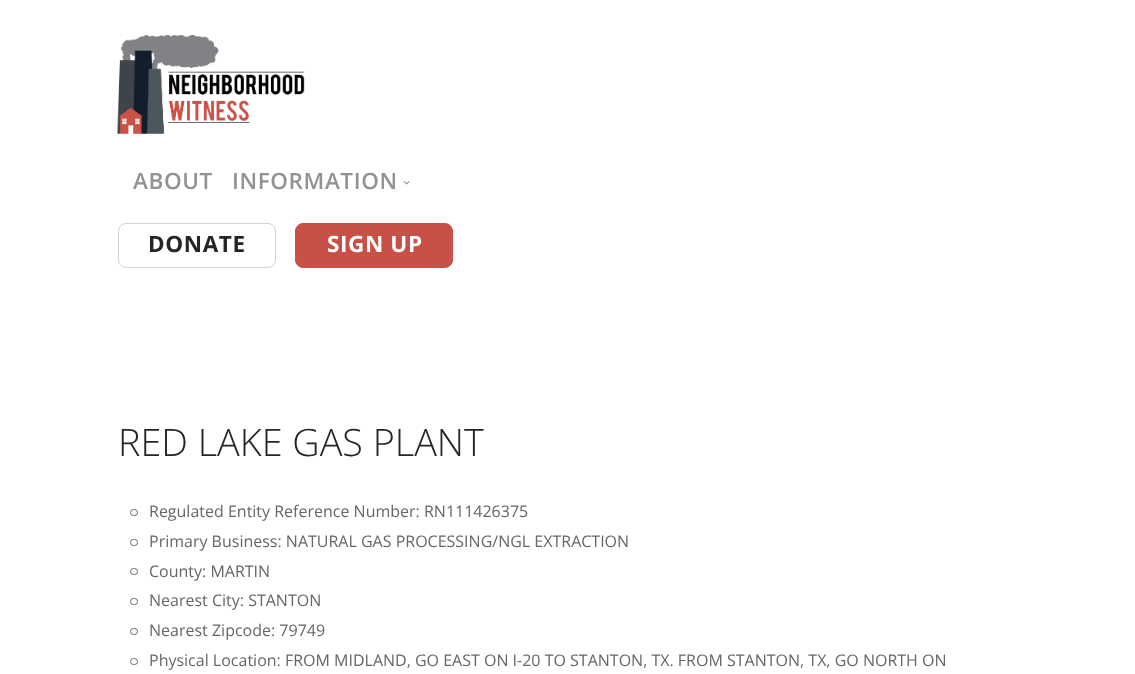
async function draw(canvas) {
	canvas.width = 1135;
	canvas.height = 674;
	const c = canvas.getContext('2d');
	c.miterLimit = 4;
	c.fontKerning = 'normal';
	async function loadImage(src) {
		const img = new Image();
		img.src = src;
		await img.decode();
		return img;
	}

	c.fillStyle = '#fff';
	c.fillRect(0, 0, 1135, 674);
	c.drawImage(await loadImage('img1.png'), 117, 35, 188, 99);
	c.letterSpacing = '0.6px';
	c.font = '600 22.5px Open Sans';
	c.fillStyle = '#929292';
	c.fillText('ABOUT', 133, 189);
	c.fillText('INFORMATION', 232, 189);
	c.drawImage(await loadImage('img2.png'), 403, 181, 7, 4);
	c.beginPath();
	c.roundRect(118.5, 223.5, 157, 44, 7.5);
	c.strokeStyle = '#d3d3d3';
	c.stroke();
	c.font = 'bold 22.5px Open Sans';
	c.fillStyle = '#252525';
	c.fillText('DONATE', 148, 252);
	c.fillStyle = '#c75146';
	c.beginPath();
	c.roundRect(295.5, 223.5, 157, 44, 7.5);
	c.fill();
	c.strokeStyle = '#c75146';
	c.stroke();
	c.fillStyle = '#fff';
	c.fillText('SIGN UP', 327, 252);
	c.letterSpacing = '0px';
	c.font = '300 37.75px Open Sans';
	c.fillStyle = '#252525';
	c.fillText('RED LAKE GAS PLANT', 118, 456);
	c.beginPath();
	c.roundRect(130.5, 509.5, 7, 6, 3);
	c.strokeStyle = '#666';
	c.stroke();
	c.font = '16px Open Sans';
	c.fillStyle = '#666';
	c.fillText('Regulated Entity Reference Number: RN111426375', 149, 517);
	c.beginPath();
	c.roundRect(130.5, 539.5, 7, 6, 3);
	c.stroke();
	c.fillText('Primary Business: NATURAL GAS PROCESSING/NGL EXTRACTION', 149, 547);
	c.beginPath();
	c.roundRect(130.5, 568.5, 7, 6, 3);
	c.stroke();
	c.fillText('County: MARTIN', 149, 577);
	c.beginPath();
	c.roundRect(130.5, 598.5, 7, 6, 3);
	c.stroke();
	c.fillText('Nearest City: STANTON', 149, 606);
	c.beginPath();
	c.roundRect(130.5, 628.5, 7, 6, 3);
	c.stroke();
	c.fillText('Nearest Zipcode: 79749', 149, 636);
	c.beginPath();
	c.roundRect(130.5, 658.5, 7, 6, 3);
	c.stroke();
	c.fillText('Physical Location: FROM MIDLAND, GO EAST ON I-20 TO STANTON, TX. FROM STANTON, TX, GO NORTH ON', 149, 666);
}

draw(document.querySelector('canvas'));
